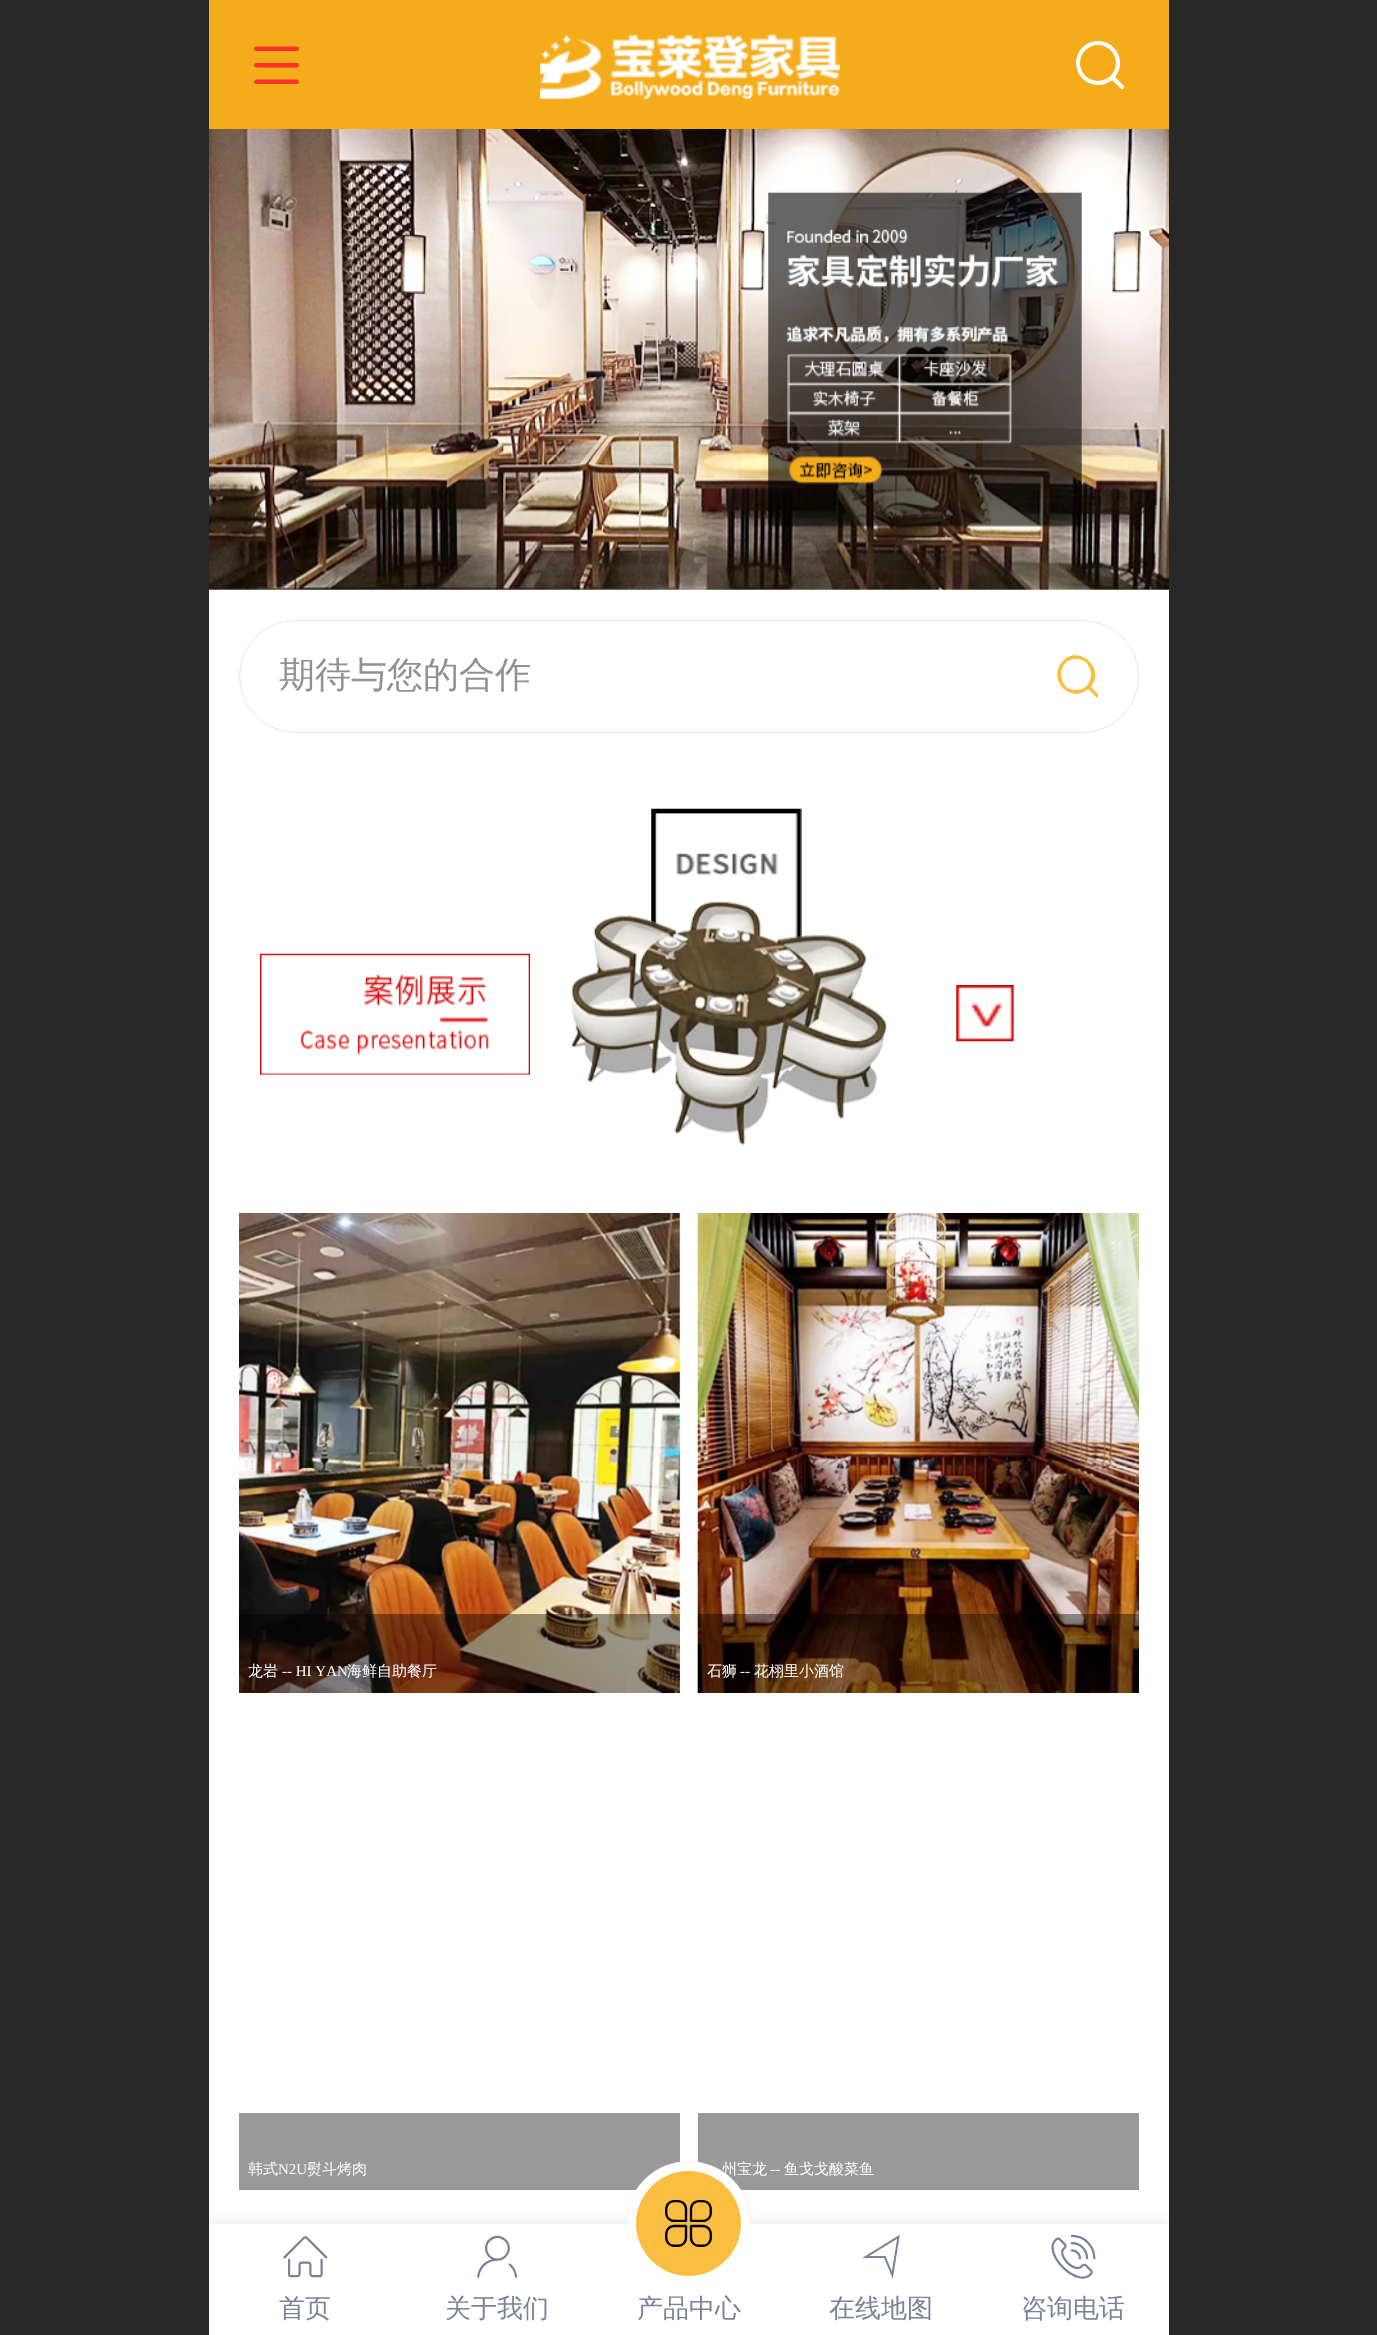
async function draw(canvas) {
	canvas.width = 1377;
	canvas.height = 2335;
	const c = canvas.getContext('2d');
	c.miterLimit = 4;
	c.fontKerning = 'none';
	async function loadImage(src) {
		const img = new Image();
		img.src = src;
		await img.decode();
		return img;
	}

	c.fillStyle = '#fff';
	c.fillRect(0, 0, 1377, 2335);
	c.fillStyle = '#0000001a';
	c.filter = 'blur(7.5px)';
	c.beginPath();
	c.rect(209, 2223, 960, 112);
	c.fill();
	c.filter = 'none';
	c.fillStyle = '#282828';
	c.fillRect(0, 0, 209, 2335);
	c.fillStyle = '#f5ac1b';
	c.fillRect(209, 0, 960, 129);
	c.font = '45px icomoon';
	c.fillStyle = '#fc3229';
	c.fillText('򰌲', 254, 84);
	c.drawImage(await loadImage('img1.png'), 540, 33, 300, 66);
	c.font = '48px icomoon';
	c.fillStyle = '#fff';
	c.fillText('򰊐', 1076, 85);
	c.drawImage(await loadImage('img2.png'), 209, 129, 960, 461);
	c.beginPath();
	c.roundRect(239.5, 620.5, 899, 112, 56);
	c.strokeStyle = '#e5e5e5';
	c.stroke();
	c.font = '500 36px WenQuanYi Zen Hei';
	c.fillStyle = '#919191';
	c.fillText('期待与您的合作', 279, 687);
	c.fillStyle = '#fbbe40';
	c.beginPath();
	c.moveTo(1076, 690);
	c.bezierCurveTo(1056, 690, 1056, 659, 1076, 659);
	c.bezierCurveTo(1096, 659, 1096, 690, 1076, 690);
	c.moveTo(1098, 694);
	c.lineTo(1091, 687);
	c.bezierCurveTo(1106, 669, 1079, 644, 1063, 661);
	c.bezierCurveTo(1046, 678, 1070, 705, 1088, 689);
	c.lineTo(1096, 697);
	c.bezierCurveTo(1098, 698, 1099, 696, 1098, 694);
	c.fill();
	c.drawImage(await loadImage('img3.png'), 651, 808, 151, 132);
	c.drawImage(await loadImage('img4.png'), 260, 953, 270, 122);
	c.drawImage(await loadImage('img5.png'), 571, 901, 316, 244);
	c.drawImage(await loadImage('img6.png'), 956, 985, 58, 57);
	c.drawImage(await loadImage('img7.png'), 239, 1213, 442, 480);
	c.fillStyle = '#00000066';
	c.fillRect(239, 1614, 441, 79);
	c.font = '500 15px WenQuanYi Zen Hei';
	c.fillStyle = '#fff';
	c.fillText('龙岩', 248, 1676);
	c.font = '15px Liberation Serif';
	c.fillText('-- HI YAN', 282, 1676);
	c.font = '500 15px WenQuanYi Zen Hei';
	c.fillText('海鲜自助餐厅', 347, 1676);
	c.drawImage(await loadImage('img8.png'), 697, 1213, 442, 480);
	c.fillStyle = '#00000066';
	c.fillRect(698, 1614, 441, 79);
	c.fillStyle = '#fff';
	c.fillText('石狮', 707, 1676);
	c.font = '15px Liberation Serif';
	c.fillText('--', 740, 1676);
	c.font = '500 15px WenQuanYi Zen Hei';
	c.fillText('花栩里小酒馆', 754, 1676);
	c.fillStyle = '#999';
	c.fillRect(239, 2113, 441, 77);
	c.fillStyle = '#fff';
	c.fillText('韩式', 248, 2174);
	c.font = '15px Liberation Serif';
	c.fillText('N2U', 278, 2174);
	c.font = '500 15px WenQuanYi Zen Hei';
	c.fillText('熨斗烤肉', 307, 2174);
	c.fillStyle = '#999';
	c.fillRect(698, 2113, 441, 77);
	c.fillStyle = '#fff';
	c.fillText('州宝龙', 722, 2174);
	c.font = '15px Liberation Serif';
	c.fillText('--', 770, 2174);
	c.font = '500 15px WenQuanYi Zen Hei';
	c.fillText('鱼戈戈酸菜鱼', 784, 2174);
	c.fillRect(209, 2224, 960, 111);
	c.fillStyle = '#f4f4f4';
	c.fillRect(209, 2223, 960, 1);
	c.font = '44px icomoon';
	c.fillStyle = '#7b8196';
	c.fillText('򠡀', 283, 2276);
	c.font = '500 26px WenQuanYi Zen Hei';
	c.fillText('首页', 279, 2317);
	c.font = '44px icomoon';
	c.fillText('򠌹', 475, 2276);
	c.font = '500 26px WenQuanYi Zen Hei';
	c.fillText('关于我们', 445, 2317);
	c.fillStyle = '#fff';
	c.beginPath();
	c.arc(688.5, 2223.5, 62, 0, 2 * Math.PI);
	c.fill();
	c.strokeStyle = '#f4f4f4';
	c.stroke();
	c.fillRect(626, 2224, 125, 62);
	c.fillStyle = '#fbbe40';
	c.beginPath();
	c.arc(688.5, 2223.5, 52.5, 0, 2 * Math.PI);
	c.fill();
	c.font = '47px icomoon';
	c.fillStyle = '#000';
	c.fillText('򠡃', 665, 2244);
	c.font = '500 26px WenQuanYi Zen Hei';
	c.fillStyle = '#7b8196';
	c.fillText('产品中心', 637, 2317);
	c.font = '44px icomoon';
	c.fillText('򠅧', 859, 2276);
	c.font = '500 26px WenQuanYi Zen Hei';
	c.fillText('在线地图', 829, 2317);
	c.font = '44px icomoon';
	c.fillText('򠤉', 1051, 2276);
	c.font = '500 26px WenQuanYi Zen Hei';
	c.fillText('咨询电话', 1021, 2317);
	c.fillStyle = '#282828';
	c.fillRect(1169, 0, 208, 2335);
}

draw(document.querySelector('canvas'));
